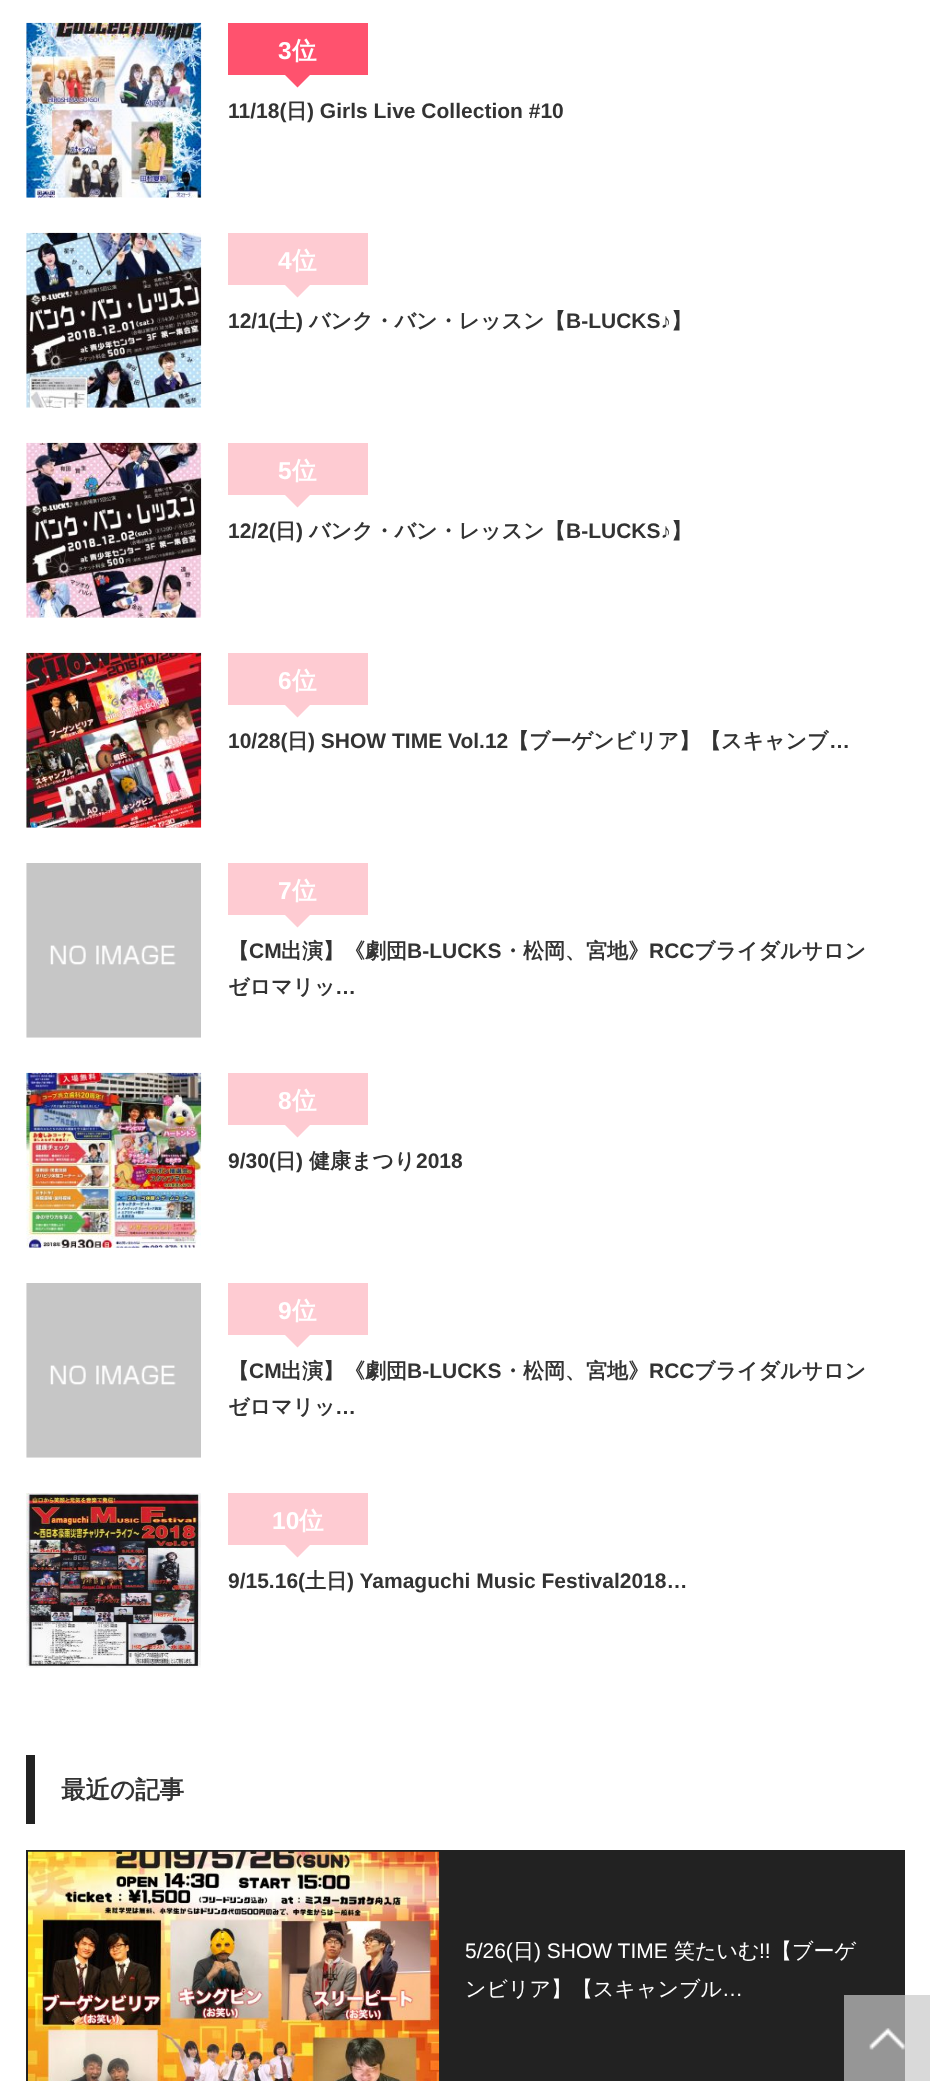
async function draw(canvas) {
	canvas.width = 930;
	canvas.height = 2081;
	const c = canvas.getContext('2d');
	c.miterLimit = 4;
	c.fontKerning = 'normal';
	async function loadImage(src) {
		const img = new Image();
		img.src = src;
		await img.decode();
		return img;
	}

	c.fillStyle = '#fff';
	c.fillRect(0, 0, 930, 2081);
	c.fillStyle = '#d9d9d9';
	c.fillRect(905, 1995, 25, 86);
	c.drawImage(await loadImage('img1.png'), 26, 22, 176, 176);
	c.fillStyle = '#ff526e';
	c.fillRect(228, 23, 140, 52);
	c.font = 'bold 24.5px Liberation Sans';
	c.fillStyle = '#fff';
	c.fillText('3', 278, 59);
	c.font = 'bold 24.5px WenQuanYi Zen Hei';
	c.fillText('位', 292, 59);
	c.fillStyle = '#ff526e';
	c.beginPath();
	c.moveTo(280, 70);
	c.lineTo(315, 70);
	c.lineTo(297.5, 87.5);
	c.closePath();
	c.fill();
	c.font = 'bold 21px Liberation Sans';
	c.fillStyle = '#333';
	c.fillText('11/18(', 228, 118);
	c.font = 'bold 21px WenQuanYi Zen Hei';
	c.fillText('日', 286, 118);
	c.font = 'bold 21px Liberation Sans';
	c.fillText(') Girls Live Collection #10', 307, 118);
	c.drawImage(await loadImage('img2.png'), 26, 232, 176, 176);
	c.fillStyle = '#fecbd2';
	c.fillRect(228, 233, 140, 52);
	c.font = 'bold 24.5px Liberation Sans';
	c.fillStyle = '#fff';
	c.fillText('4', 278, 269);
	c.font = 'bold 24.5px WenQuanYi Zen Hei';
	c.fillText('位', 292, 269);
	c.fillStyle = '#fecbd2';
	c.beginPath();
	c.moveTo(280, 280);
	c.lineTo(315, 280);
	c.lineTo(297.5, 297.5);
	c.closePath();
	c.fill();
	c.font = 'bold 21px Liberation Sans';
	c.fillStyle = '#333';
	c.fillText('12/1(', 228, 328);
	c.font = 'bold 21px WenQuanYi Zen Hei';
	c.fillText('土', 275, 328);
	c.font = 'bold 21px Liberation Sans';
	c.fillText(')', 296, 328);
	c.font = 'bold 21px WenQuanYi Zen Hei';
	c.fillText('バンク・バン・レッスン【', 309, 328);
	c.font = 'bold 21px Liberation Sans';
	c.fillText('B-LUCKS♪', 566, 328);
	c.font = 'bold 21px WenQuanYi Zen Hei';
	c.fillText('】', 671, 328);
	c.drawImage(await loadImage('img3.png'), 26, 442, 176, 176);
	c.fillStyle = '#fecbd2';
	c.fillRect(228, 443, 140, 52);
	c.font = 'bold 24.5px Liberation Sans';
	c.fillStyle = '#fff';
	c.fillText('5', 278, 479);
	c.font = 'bold 24.5px WenQuanYi Zen Hei';
	c.fillText('位', 292, 479);
	c.fillStyle = '#fecbd2';
	c.beginPath();
	c.moveTo(280, 490);
	c.lineTo(315, 490);
	c.lineTo(297.5, 507.5);
	c.closePath();
	c.fill();
	c.font = 'bold 21px Liberation Sans';
	c.fillStyle = '#333';
	c.fillText('12/2(', 228, 538);
	c.font = 'bold 21px WenQuanYi Zen Hei';
	c.fillText('日', 275, 538);
	c.font = 'bold 21px Liberation Sans';
	c.fillText(')', 296, 538);
	c.font = 'bold 21px WenQuanYi Zen Hei';
	c.fillText('バンク・バン・レッスン【', 309, 538);
	c.font = 'bold 21px Liberation Sans';
	c.fillText('B-LUCKS♪', 566, 538);
	c.font = 'bold 21px WenQuanYi Zen Hei';
	c.fillText('】', 671, 538);
	c.drawImage(await loadImage('img4.png'), 26, 652, 176, 176);
	c.fillStyle = '#fecbd2';
	c.fillRect(228, 653, 140, 52);
	c.font = 'bold 24.5px Liberation Sans';
	c.fillStyle = '#fff';
	c.fillText('6', 278, 689);
	c.font = 'bold 24.5px WenQuanYi Zen Hei';
	c.fillText('位', 292, 689);
	c.fillStyle = '#fecbd2';
	c.beginPath();
	c.moveTo(280, 700);
	c.lineTo(315, 700);
	c.lineTo(297.5, 717.5);
	c.closePath();
	c.fill();
	c.font = 'bold 21px Liberation Sans';
	c.fillStyle = '#333';
	c.fillText('10/28(', 228, 748);
	c.font = 'bold 21px WenQuanYi Zen Hei';
	c.fillText('日', 287, 748);
	c.font = 'bold 21px Liberation Sans';
	c.fillText(') SHOW TIME Vol.12', 308, 748);
	c.font = 'bold 21px WenQuanYi Zen Hei';
	c.fillText('【ブーゲンビリア】【スキャンブ', 508, 748);
	c.font = 'bold 21px Liberation Sans';
	c.fillText('…', 829, 748);
	c.drawImage(await loadImage('img5.png'), 26, 863, 175, 175);
	c.fillStyle = '#fecbd2';
	c.fillRect(228, 863, 140, 52);
	c.font = 'bold 24.5px Liberation Sans';
	c.fillStyle = '#fff';
	c.fillText('7', 278, 899);
	c.font = 'bold 24.5px WenQuanYi Zen Hei';
	c.fillText('位', 292, 899);
	c.fillStyle = '#fecbd2';
	c.beginPath();
	c.moveTo(280, 910);
	c.lineTo(315, 910);
	c.lineTo(297.5, 927.5);
	c.closePath();
	c.fill();
	c.font = 'bold 21px WenQuanYi Zen Hei';
	c.fillStyle = '#333';
	c.fillText('【', 228, 958);
	c.font = 'bold 21px Liberation Sans';
	c.fillText('CM', 249, 958);
	c.font = 'bold 21px WenQuanYi Zen Hei';
	c.fillText('出演】《劇団', 281, 958);
	c.font = 'bold 21px Liberation Sans';
	c.fillText('B-LUCKS', 407, 958);
	c.font = 'bold 21px WenQuanYi Zen Hei';
	c.fillText('・松岡、宮地》', 502, 958);
	c.font = 'bold 21px Liberation Sans';
	c.fillText('RCC', 649, 958);
	c.font = 'bold 21px WenQuanYi Zen Hei';
	c.fillText('ブライダルサロン', 694, 958);
	c.fillText('ゼロマリッ', 228, 994);
	c.font = 'bold 21px Liberation Sans';
	c.fillText('…', 335, 994);
	c.drawImage(await loadImage('img6.png'), 26, 1072, 176, 176);
	c.fillStyle = '#fecbd2';
	c.fillRect(228, 1073, 140, 52);
	c.font = 'bold 24.5px Liberation Sans';
	c.fillStyle = '#fff';
	c.fillText('8', 278, 1109);
	c.font = 'bold 24.5px WenQuanYi Zen Hei';
	c.fillText('位', 292, 1109);
	c.fillStyle = '#fecbd2';
	c.beginPath();
	c.moveTo(280, 1120);
	c.lineTo(315, 1120);
	c.lineTo(297.5, 1137.5);
	c.closePath();
	c.fill();
	c.font = 'bold 21px Liberation Sans';
	c.fillStyle = '#333';
	c.fillText('9/30(', 228, 1168);
	c.font = 'bold 21px WenQuanYi Zen Hei';
	c.fillText('日', 275, 1168);
	c.font = 'bold 21px Liberation Sans';
	c.fillText(')', 296, 1168);
	c.font = 'bold 21px WenQuanYi Zen Hei';
	c.fillText('健康まつり', 309, 1168);
	c.font = 'bold 21px Liberation Sans';
	c.fillText('2018', 416, 1168);
	c.drawImage(await loadImage('img7.png'), 26, 1283, 175, 175);
	c.fillStyle = '#fecbd2';
	c.fillRect(228, 1283, 140, 52);
	c.font = 'bold 24.5px Liberation Sans';
	c.fillStyle = '#fff';
	c.fillText('9', 278, 1319);
	c.font = 'bold 24.5px WenQuanYi Zen Hei';
	c.fillText('位', 292, 1319);
	c.fillStyle = '#fecbd2';
	c.beginPath();
	c.moveTo(280, 1330);
	c.lineTo(315, 1330);
	c.lineTo(297.5, 1347.5);
	c.closePath();
	c.fill();
	c.font = 'bold 21px WenQuanYi Zen Hei';
	c.fillStyle = '#333';
	c.fillText('【', 228, 1378);
	c.font = 'bold 21px Liberation Sans';
	c.fillText('CM', 249, 1378);
	c.font = 'bold 21px WenQuanYi Zen Hei';
	c.fillText('出演】《劇団', 281, 1378);
	c.font = 'bold 21px Liberation Sans';
	c.fillText('B-LUCKS', 407, 1378);
	c.font = 'bold 21px WenQuanYi Zen Hei';
	c.fillText('・松岡、宮地》', 502, 1378);
	c.font = 'bold 21px Liberation Sans';
	c.fillText('RCC', 649, 1378);
	c.font = 'bold 21px WenQuanYi Zen Hei';
	c.fillText('ブライダルサロン', 694, 1378);
	c.fillText('ゼロマリッ', 228, 1414);
	c.font = 'bold 21px Liberation Sans';
	c.fillText('…', 335, 1414);
	c.drawImage(await loadImage('img8.png'), 26, 1493, 175, 175);
	c.fillStyle = '#fecbd2';
	c.fillRect(228, 1493, 140, 52);
	c.font = 'bold 24.5px Liberation Sans';
	c.fillStyle = '#fff';
	c.fillText('10', 272, 1529);
	c.font = 'bold 24.5px WenQuanYi Zen Hei';
	c.fillText('位', 299, 1529);
	c.fillStyle = '#fecbd2';
	c.beginPath();
	c.moveTo(280, 1540);
	c.lineTo(315, 1540);
	c.lineTo(297.5, 1557.5);
	c.closePath();
	c.fill();
	c.font = 'bold 21px Liberation Sans';
	c.fillStyle = '#333';
	c.fillText('9/15.16(', 228, 1588);
	c.font = 'bold 21px WenQuanYi Zen Hei';
	c.fillText('土日', 305, 1588);
	c.font = 'bold 21px Liberation Sans';
	c.fillText(') Yamaguchi Music Festival2018…', 347, 1588);
	c.fillStyle = '#222';
	c.fillRect(26, 1755, 9, 69);
	c.font = 'bold 24.5px WenQuanYi Zen Hei';
	c.fillStyle = '#333';
	c.fillText('最近の記事', 61, 1798);
	c.fillStyle = '#222';
	c.fillRect(26, 1850, 879, 231);
	c.fillStyle = '#969696';
	c.fillRect(844, 1995, 61, 86);
	c.drawImage(await loadImage('img9.png'), 28, 1851, 412, 230);
	c.font = '21px Liberation Sans';
	c.fillStyle = '#fff';
	c.fillText('5/26(', 465, 1958);
	c.font = '500 21px WenQuanYi Zen Hei';
	c.fillText('日', 513, 1958);
	c.font = '21px Liberation Sans';
	c.fillText(') SHOW TIME', 534, 1958);
	c.font = '500 21px WenQuanYi Zen Hei';
	c.fillText('笑たいむ', 674, 1958);
	c.font = '21px Liberation Sans';
	c.fillText('!!', 759, 1958);
	c.font = '500 21px WenQuanYi Zen Hei';
	c.fillText('【ブーゲ', 771, 1958);
	c.fillText('ンビリア】【スキャンブル', 465, 1996);
	c.font = '21px Liberation Sans';
	c.fillText('…', 722, 1996);
	c.drawImage(await loadImage('img10.png'), 869, 2028, 36, 22);
}

draw(document.querySelector('canvas'));
